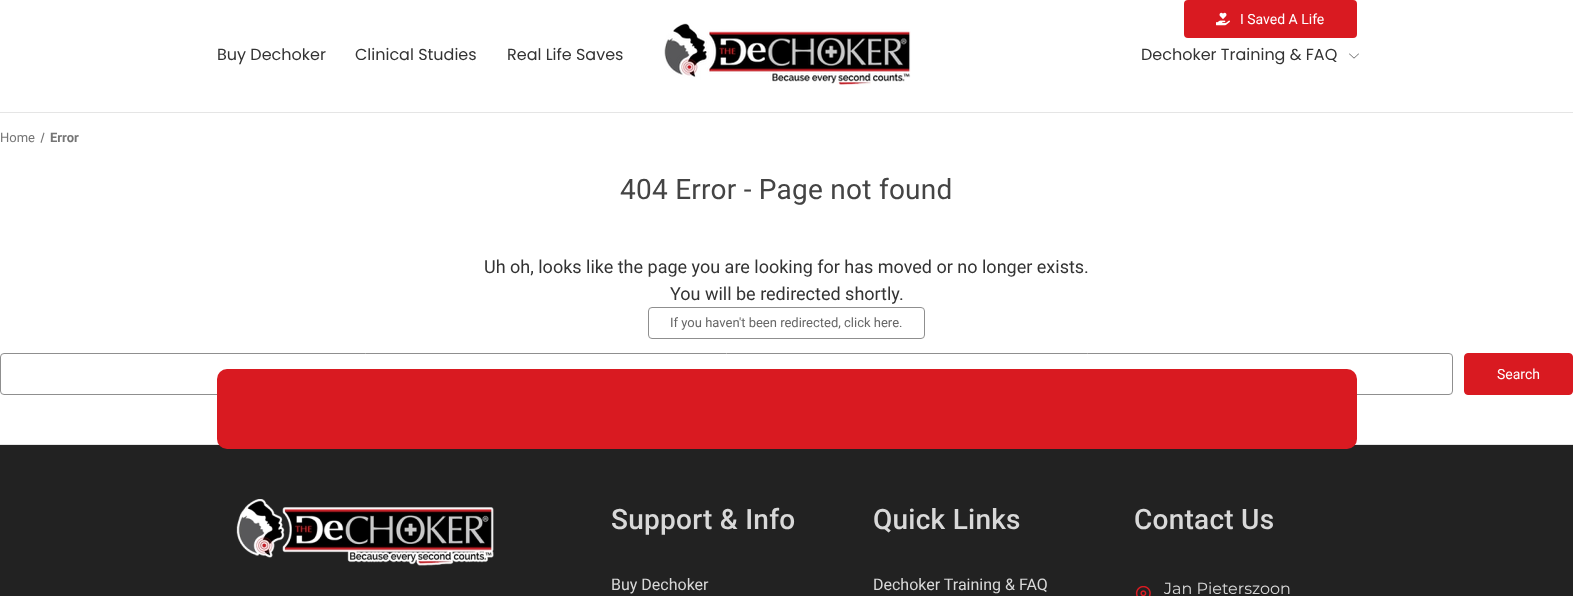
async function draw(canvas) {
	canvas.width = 1573;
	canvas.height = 596;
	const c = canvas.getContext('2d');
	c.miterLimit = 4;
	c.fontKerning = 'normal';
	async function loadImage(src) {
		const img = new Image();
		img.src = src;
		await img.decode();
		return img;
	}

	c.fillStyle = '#fff';
	c.fillRect(0, 0, 1573, 596);
	c.fillStyle = '#e5e5e5';
	c.fillRect(0, 112, 1573, 1);
	c.font = '16px Poppins';
	c.fillStyle = '#333';
	for (const [text, x, y] of [
		['Buy Dechoker', 217, 60],
		['Clinical Studies', 355, 60],
		['Real Life Saves', 507, 60],
	]) {
		c.fillText(text, x, y);
	}
	c.drawImage(await loadImage('img1.png'), 664, 23, 247, 62);
	c.fillStyle = '#d91a21';
	c.beginPath();
	c.roundRect(1184, 0, 173, 38, 4);
	c.fill();
	c.drawImage(await loadImage('img2.png'), 1216, 12, 14, 14);
	c.font = '14px Roboto';
	c.fillStyle = '#fff';
	c.fillText('I Saved A Life', 1240, 24);
	c.font = '16px Poppins';
	c.fillStyle = '#333';
	c.fillText('Dechoker Training & FAQ', 1141, 60);
	c.drawImage(await loadImage('img3.png'), 1349, 53, 10, 6);
	c.font = '13px Roboto';
	c.fillStyle = '#757575';
	c.fillText('Home', 0, 142);
	c.beginPath();
	c.moveTo(43.5, 132.5);
	c.lineTo(44.5, 133);
	c.lineTo(41.5, 143);
	c.lineTo(40.5, 142.5);
	c.closePath();
	c.fill();
	c.font = 'bold 13px Roboto';
	c.fillText('Error', 50, 142);
	c.letterSpacing = '0.25px';
	c.font = '28px Roboto';
	c.fillStyle = '#444';
	c.fillText('404 Error - Page not found', 620, 199);
	c.letterSpacing = '0px';
	c.font = '18px Roboto';
	c.fillStyle = '#333';
	c.fillText('Uh oh, looks like the page you are looking for has moved or no longer exists.', 484, 273);
	c.fillText('You will be redirected shortly.', 670, 300);
	c.beginPath();
	c.roundRect(648.5, 307.5, 276, 31, 3.5);
	c.strokeStyle = '#8f8f8f';
	c.stroke();
	c.font = '13px Roboto';
	c.fillStyle = '#666';
	c.fillText('If you haven\'t been redirected, click here.', 670, 327);
	c.beginPath();
	c.roundRect(0.5, 353.5, 1452, 41, 3.5);
	c.stroke();
	c.fillStyle = '#d91a21';
	c.beginPath();
	c.roundRect(1464.5, 353.5, 108, 41, 3.5);
	c.fill();
	c.strokeStyle = '#d91a21';
	c.stroke();
	c.font = '14px Roboto';
	c.fillStyle = '#fff';
	c.fillText('Search', 1497, 379);
	c.fillStyle = '#222';
	c.fillRect(0, 445, 1573, 151);
	c.fillStyle = '#e5e5e5';
	c.fillRect(0, 444, 1573, 1);
	c.fillStyle = '#d91a21';
	c.beginPath();
	c.roundRect(217, 369, 1140, 80, 10);
	c.fill();
	c.drawImage(await loadImage('img4.png'), 236, 499, 258, 67);
	c.letterSpacing = '0.25px';
	c.font = '500 28px Roboto';
	c.fillStyle = '#d9d9d9';
	c.fillText('Support & Info', 611, 529);
	c.letterSpacing = '0px';
	c.font = '16px Roboto';
	c.fillText('Buy Dechoker', 611, 590);
	c.letterSpacing = '0.25px';
	c.font = '500 28px Roboto';
	c.fillText('Quick Links', 873, 529);
	c.letterSpacing = '0px';
	c.font = '16px Roboto';
	c.fillText('Dechoker Training & FAQ', 873, 590);
	c.letterSpacing = '0.25px';
	c.font = '500 28px Roboto';
	c.fillText('Contact Us', 1134, 529);
	c.drawImage(await loadImage('img5.png'), 1135, 586, 16, 10);
	c.letterSpacing = '0px';
	c.font = '16px Montserrat';
	c.fillText('Jan Pieterszoon', 1164, 594);
}

draw(document.querySelector('canvas'));
